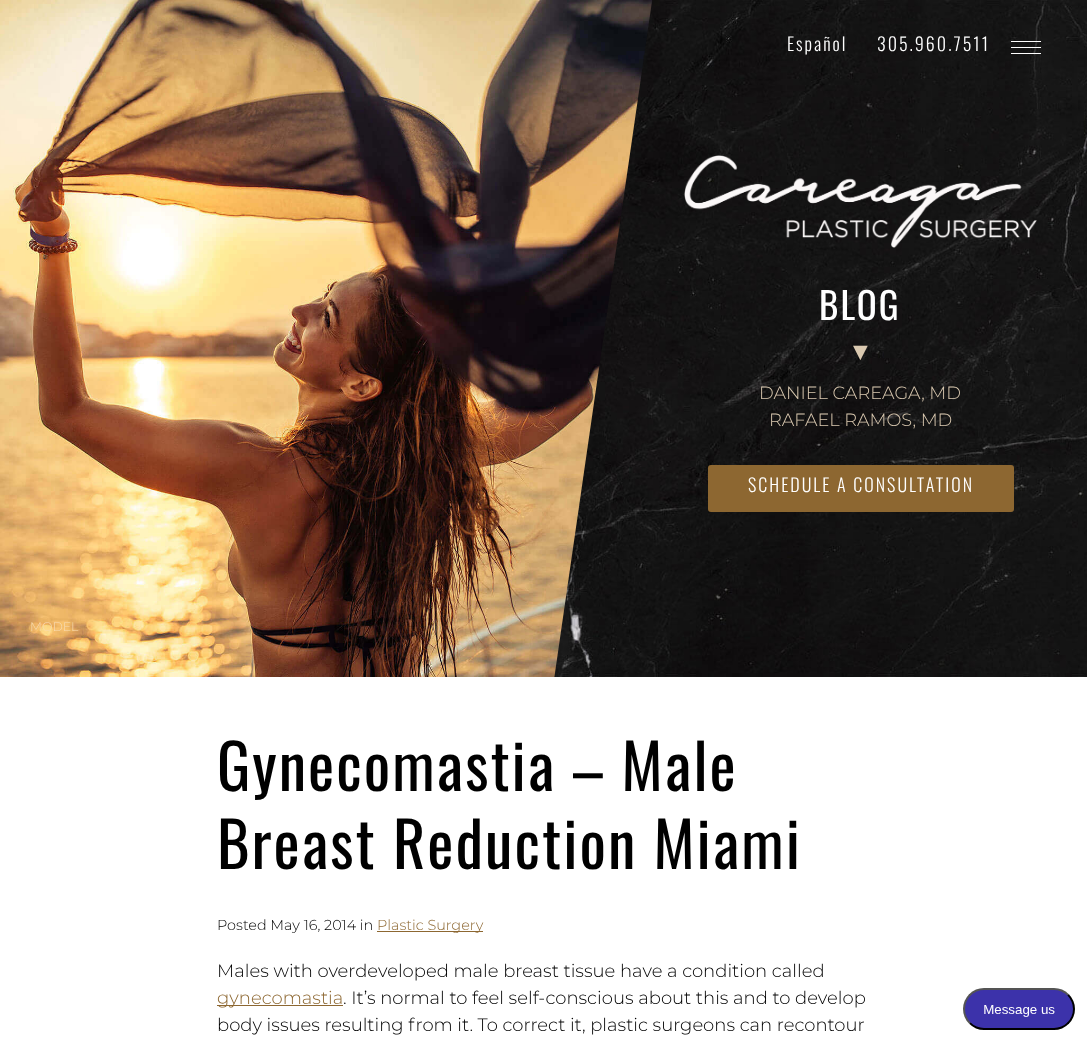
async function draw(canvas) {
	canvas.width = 1087;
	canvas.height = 1042;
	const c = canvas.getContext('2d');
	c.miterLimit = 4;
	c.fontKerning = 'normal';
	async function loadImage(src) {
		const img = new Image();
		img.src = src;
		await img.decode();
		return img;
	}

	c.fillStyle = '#fff';
	c.fillRect(0, 0, 1087, 1042);
	c.drawImage(await loadImage('img1.png'), 554, 0, 533, 677);
	c.letterSpacing = '2px';
	c.font = '300 18px Oswald';
	c.fillText('Español', 787, 51);
	c.fillText('305.960.7511', 877, 51);
	for (const [x, y, w, h, color] of [
		[1011, 41, 30, 1, '#fff'],
		[1011, 47, 30, 1, '#fff'],
		[1011, 53, 30, 1, '#fff'],
	]) {
		c.fillStyle = color;
		c.fillRect(x, y, w, h);
	}
	c.drawImage(await loadImage('img2.png'), 684, 155, 353, 93);
	c.font = '37px Oswald';
	c.fillText('BLOG', 819, 320);
	c.letterSpacing = '0px';
	c.font = '25px Liberation Sans';
	c.fillStyle = '#dbcab1';
	c.fillText('▼', 848, 360);
	c.font = '300 17.75px Montserrat';
	c.fillText('DANIEL CAREAGA, MD', 759, 399);
	c.fillText('RAFAEL RAMOS, MD', 769, 426);
	c.fillStyle = '#8d6731';
	c.beginPath();
	c.roundRect(708, 465, 306, 47, 3);
	c.fill();
	c.letterSpacing = '2px';
	c.font = '300 18px Oswald';
	c.fillStyle = '#fff';
	c.fillText('SCHEDULE A CONSULTATION', 748, 492);
	c.drawImage(await loadImage('img3.png'), 0, 0, 652, 677);
	c.letterSpacing = '0px';
	c.font = '300 12.5px Montserrat';
	c.fillStyle = '#f7dcb4';
	c.fillText('MODEL', 30, 631);
	c.letterSpacing = '2px';
	c.font = '62.25px Oswald';
	c.fillStyle = '#000';
	c.fillText('Gynecomastia – Male', 217, 791);
	c.fillText('Breast Reduction Miami', 217, 869);
	c.letterSpacing = '0px';
	c.font = '300 14.4px Montserrat';
	c.fillText('Posted May 16, 2014 in', 217, 930);
	c.fillStyle = '#8d6731';
	c.fillRect(377, 931, 106, 1);
	c.fillText('Plastic Surgery', 377, 930);
	c.font = '300 18px Montserrat';
	c.fillStyle = '#000';
	c.fillText('Males with overdeveloped male breast tissue have a condition called', 217, 977);
	c.fillStyle = '#8d6731';
	c.fillRect(217, 1005, 126, 1);
	c.fillText('gynecomastia', 217, 1004);
	c.fillStyle = '#000';
	c.fillText('. It’s normal to feel self-conscious about this and to develop', 343, 1004);
	c.fillText('body issues resulting from it. To correct it, plastic surgeons can recontour', 217, 1031);
	c.drawImage(await loadImage('img4.png'), 963, 988, 112, 42);
}

draw(document.querySelector('canvas'));
